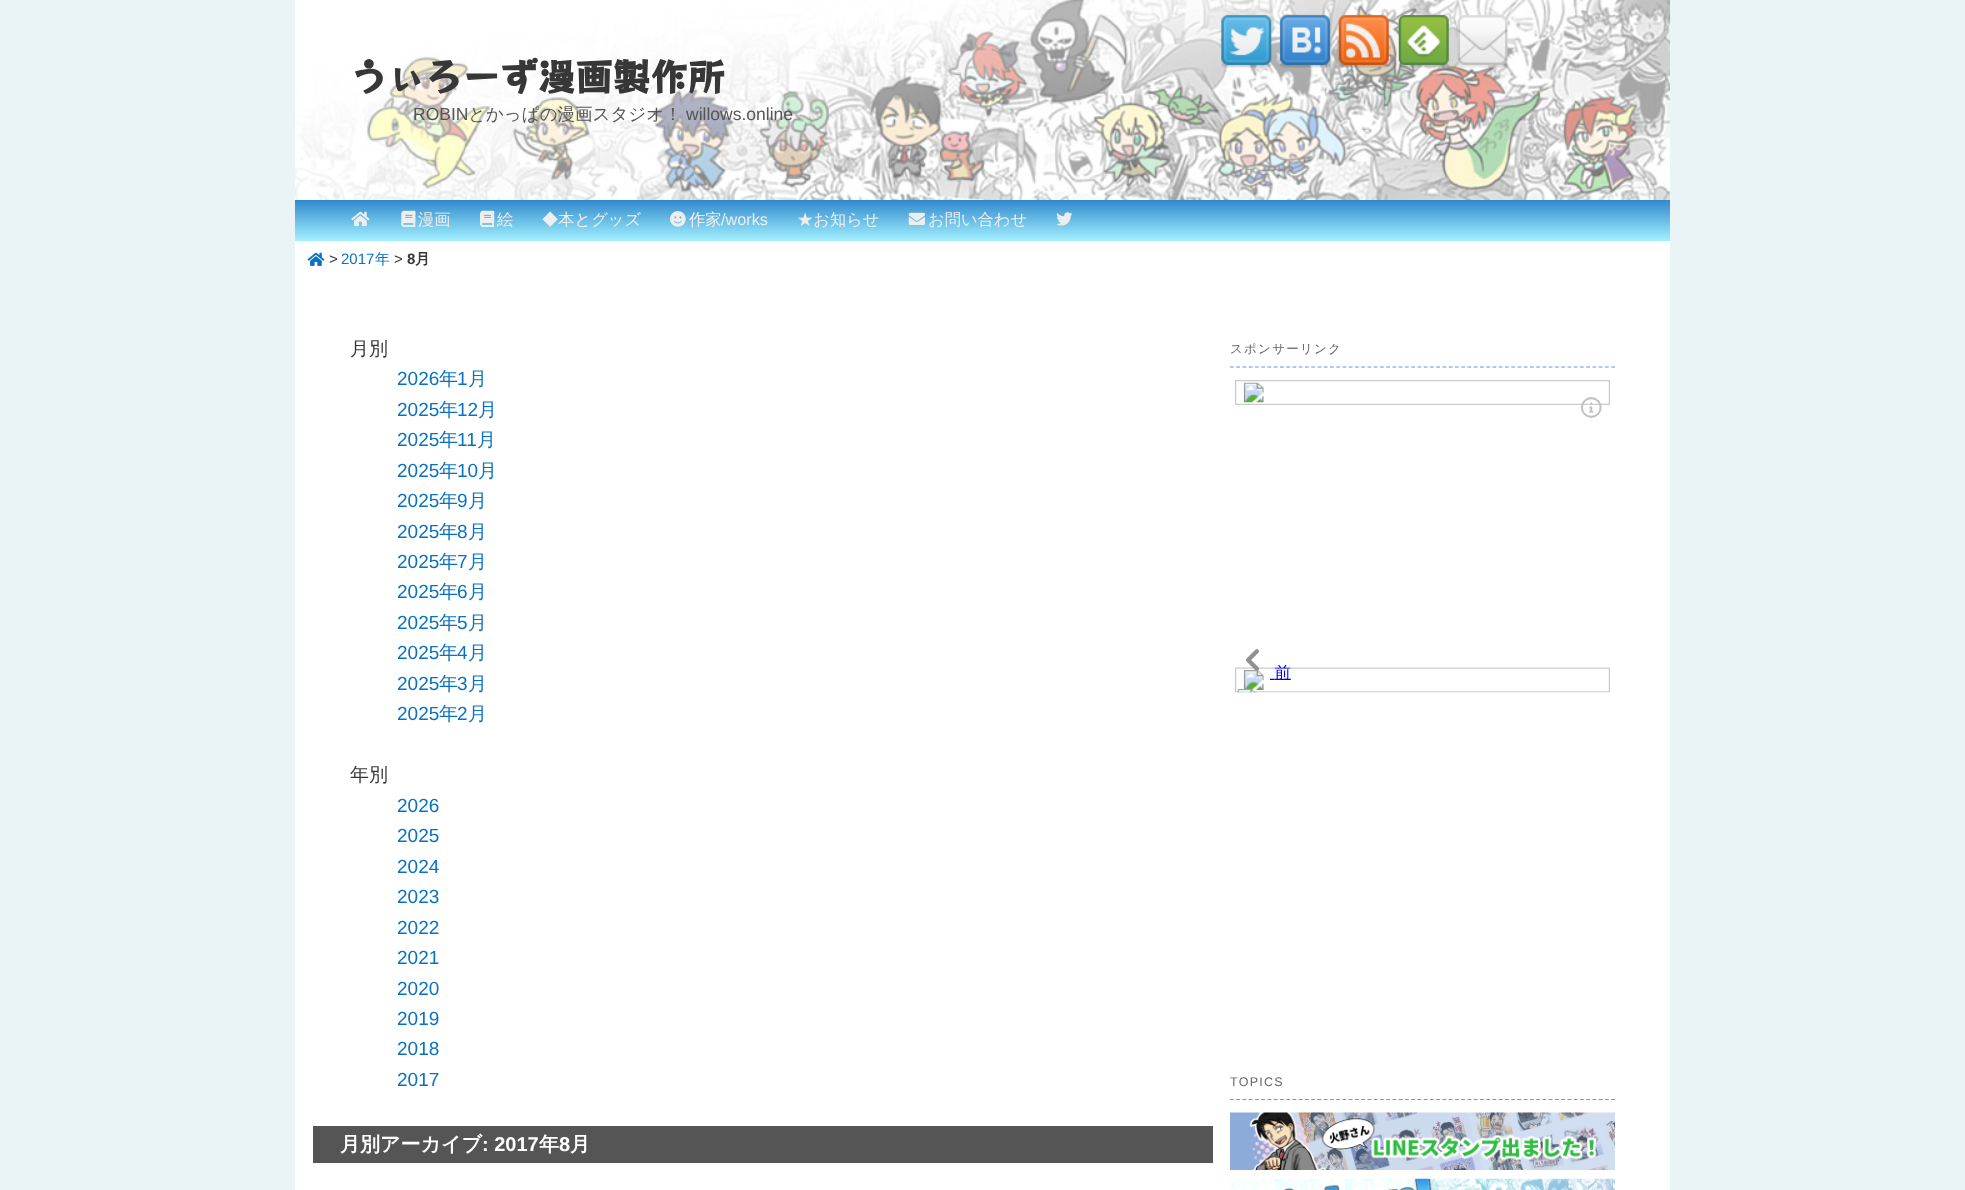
async function draw(canvas) {
	canvas.width = 1965;
	canvas.height = 1190;
	const c = canvas.getContext('2d');
	c.miterLimit = 4;
	c.fontKerning = 'normal';
	async function loadImage(src) {
		const img = new Image();
		img.src = src;
		await img.decode();
		return img;
	}
	let gradient;

	c.fillStyle = '#eaf4f7';
	c.fillRect(0, 0, 1965, 1190);
	c.fillStyle = '#fff';
	c.fillRect(295, 241, 1375, 949);
	c.drawImage(await loadImage('img6.png'), 295, 0, 1375, 200);
	c.drawImage(await loadImage('img1.png'), 1221, 14, 51, 54);
	c.drawImage(await loadImage('img2.png'), 1279, 14, 52, 54);
	c.drawImage(await loadImage('img3.png'), 1338, 14, 51, 54);
	c.drawImage(await loadImage('img4.png'), 1398, 14, 52, 54);
	c.drawImage(await loadImage('img5.png'), 1457, 15, 51, 53);
	c.font = 'bold 37.5px RocknRoll One';
	c.fillStyle = '#373737';
	c.fillText('うぃろーず漫画製作所', 350, 91);
	c.font = '17.5px Liberation Sans';
	c.fillStyle = '#555';
	c.fillText('ROBIN', 413, 120);
	c.font = '500 17.5px WenQuanYi Zen Hei';
	c.fillText('とかっぱの漫画スタジオ！', 468, 120);
	c.font = '17.5px Liberation Sans';
	c.fillText('willows.online', 686, 120);
	gradient = c.createLinearGradient(983, 200, 983, 241);
	gradient.addColorStop(0, '#3189cd');
	gradient.addColorStop(1, '#a3f1ff');
	c.fillStyle = gradient;
	c.fillRect(295, 200, 1375, 41);
	c.drawImage(await loadImage('img7.png'), 351, 211, 19, 15);
	c.drawImage(await loadImage('img8.png'), 401, 210, 15, 17);
	c.font = '500 16.25px WenQuanYi Zen Hei';
	c.fillStyle = '#eee';
	c.fillText('漫画', 418, 225);
	c.drawImage(await loadImage('img9.png'), 480, 210, 15, 17);
	c.fillText('絵', 497, 225);
	c.fillText('◆本とグッズ', 542, 225);
	c.drawImage(await loadImage('img10.png'), 670, 211, 16, 16);
	c.fillText('作家', 689, 225);
	c.font = '16.25px Liberation Sans';
	c.fillText('/works', 721, 225);
	c.font = '500 16.25px WenQuanYi Zen Hei';
	c.fillText('★お知らせ', 797, 225);
	c.drawImage(await loadImage('img11.png'), 908, 212, 17, 13);
	c.fillText('お問い合わせ', 928, 225);
	c.drawImage(await loadImage('img12.png'), 1056, 212, 17, 14);
	c.drawImage(await loadImage('img13.png'), 307, 252, 18, 14);
	c.font = '15px Liberation Sans';
	c.fillStyle = '#373737';
	c.fillText('>', 329, 264);
	c.fillStyle = '#0871c0';
	c.fillText('2017', 341, 264);
	c.font = '500 15px WenQuanYi Zen Hei';
	c.fillText('年', 375, 264);
	c.font = '15px Liberation Sans';
	c.fillStyle = '#373737';
	c.fillText('>', 394, 264);
	c.font = 'bold 15px Liberation Sans';
	c.fillText('8', 407, 264);
	c.font = 'bold 15px WenQuanYi Zen Hei';
	c.fillText('月', 415, 264);
	c.font = '500 19px WenQuanYi Zen Hei';
	c.fillText('月別', 350, 355);
	c.font = '19px Liberation Sans';
	c.fillStyle = '#0871c0';
	c.fillText('2026', 397, 385);
	c.font = '500 19px WenQuanYi Zen Hei';
	c.fillText('年', 439, 385);
	c.font = '19px Liberation Sans';
	c.fillText('1', 457, 385);
	c.font = '500 19px WenQuanYi Zen Hei';
	c.fillText('月', 468, 385);
	c.font = '19px Liberation Sans';
	c.fillText('2025', 397, 416);
	c.font = '500 19px WenQuanYi Zen Hei';
	c.fillText('年', 439, 416);
	c.font = '19px Liberation Sans';
	c.fillText('12', 457, 416);
	c.font = '500 19px WenQuanYi Zen Hei';
	c.fillText('月', 478, 416);
	c.font = '19px Liberation Sans';
	c.fillText('2025', 397, 446);
	c.font = '500 19px WenQuanYi Zen Hei';
	c.fillText('年', 439, 446);
	c.font = '19px Liberation Sans';
	c.fillText('11', 457, 446);
	c.font = '500 19px WenQuanYi Zen Hei';
	c.fillText('月', 477, 446);
	c.font = '19px Liberation Sans';
	c.fillText('2025', 397, 477);
	c.font = '500 19px WenQuanYi Zen Hei';
	c.fillText('年', 439, 477);
	c.font = '19px Liberation Sans';
	c.fillText('10', 457, 477);
	c.font = '500 19px WenQuanYi Zen Hei';
	c.fillText('月', 478, 477);
	c.font = '19px Liberation Sans';
	c.fillText('2025', 397, 507);
	c.font = '500 19px WenQuanYi Zen Hei';
	c.fillText('年', 439, 507);
	c.font = '19px Liberation Sans';
	c.fillText('9', 457, 507);
	c.font = '500 19px WenQuanYi Zen Hei';
	c.fillText('月', 468, 507);
	c.font = '19px Liberation Sans';
	c.fillText('2025', 397, 538);
	c.font = '500 19px WenQuanYi Zen Hei';
	c.fillText('年', 439, 538);
	c.font = '19px Liberation Sans';
	c.fillText('8', 457, 538);
	c.font = '500 19px WenQuanYi Zen Hei';
	c.fillText('月', 468, 538);
	c.font = '19px Liberation Sans';
	c.fillText('2025', 397, 568);
	c.font = '500 19px WenQuanYi Zen Hei';
	c.fillText('年', 439, 568);
	c.font = '19px Liberation Sans';
	c.fillText('7', 457, 568);
	c.font = '500 19px WenQuanYi Zen Hei';
	c.fillText('月', 468, 568);
	c.font = '19px Liberation Sans';
	c.fillText('2025', 397, 598);
	c.font = '500 19px WenQuanYi Zen Hei';
	c.fillText('年', 439, 598);
	c.font = '19px Liberation Sans';
	c.fillText('6', 457, 598);
	c.font = '500 19px WenQuanYi Zen Hei';
	c.fillText('月', 468, 598);
	c.font = '19px Liberation Sans';
	c.fillText('2025', 397, 629);
	c.font = '500 19px WenQuanYi Zen Hei';
	c.fillText('年', 439, 629);
	c.font = '19px Liberation Sans';
	c.fillText('5', 457, 629);
	c.font = '500 19px WenQuanYi Zen Hei';
	c.fillText('月', 468, 629);
	c.font = '19px Liberation Sans';
	c.fillText('2025', 397, 659);
	c.font = '500 19px WenQuanYi Zen Hei';
	c.fillText('年', 439, 659);
	c.font = '19px Liberation Sans';
	c.fillText('4', 457, 659);
	c.font = '500 19px WenQuanYi Zen Hei';
	c.fillText('月', 468, 659);
	c.font = '19px Liberation Sans';
	c.fillText('2025', 397, 690);
	c.font = '500 19px WenQuanYi Zen Hei';
	c.fillText('年', 439, 690);
	c.font = '19px Liberation Sans';
	c.fillText('3', 457, 690);
	c.font = '500 19px WenQuanYi Zen Hei';
	c.fillText('月', 468, 690);
	c.font = '19px Liberation Sans';
	c.fillText('2025', 397, 720);
	c.font = '500 19px WenQuanYi Zen Hei';
	c.fillText('年', 439, 720);
	c.font = '19px Liberation Sans';
	c.fillText('2', 457, 720);
	c.font = '500 19px WenQuanYi Zen Hei';
	c.fillText('月', 468, 720);
	c.fillStyle = '#373737';
	c.fillText('年別', 350, 781);
	c.font = '19px Liberation Sans';
	c.fillStyle = '#0871c0';
	for (const [text, x, y] of [
		['2026', 397, 812],
		['2025', 397, 842],
		['2024', 397, 873],
		['2023', 397, 903],
		['2022', 397, 934],
		['2021', 397, 964],
		['2020', 397, 995],
		['2019', 397, 1025],
		['2018', 397, 1055],
		['2017', 397, 1086],
	]) {
		c.fillText(text, x, y);
	}
	c.fillStyle = '#555';
	c.fillRect(313, 1126, 900, 37);
	c.font = 'bold 20px WenQuanYi Zen Hei';
	c.fillStyle = '#fff';
	c.fillText('月別アーカイブ', 340, 1151);
	c.font = 'bold 20px Liberation Sans';
	c.fillText(': 2017', 482, 1151);
	c.font = 'bold 20px WenQuanYi Zen Hei';
	c.fillText('年', 539, 1151);
	c.font = 'bold 20px Liberation Sans';
	c.fillText('8', 559, 1151);
	c.font = 'bold 20px WenQuanYi Zen Hei';
	c.fillText('月', 570, 1151);
	c.beginPath();
	c.moveTo(1230, 367);
	c.lineTo(1615, 367);
	c.strokeStyle = '#6594e0';
	c.lineWidth = 1.2;
	c.setLineDash([3.75, 2.5]);
	c.stroke();
	c.letterSpacing = '1.25px';
	c.font = '500 12.5px WenQuanYi Zen Hei';
	c.fillStyle = '#666';
	c.fillText('スポンサーリンク', 1230, 353);
	c.drawImage(await loadImage('img14.png'), 1235, 380, 375, 313);
	c.beginPath();
	c.moveTo(1230, 1099.5);
	c.lineTo(1615, 1099.5);
	c.stroke();
	c.font = '12.5px Liberation Sans';
	c.fillText('TOPICS', 1230, 1086);
	c.drawImage(await loadImage('img15.png'), 1230, 1112, 385, 58);
	c.drawImage(await loadImage('img16.png'), 1230, 1178, 385, 12);
}

draw(document.querySelector('canvas'));
